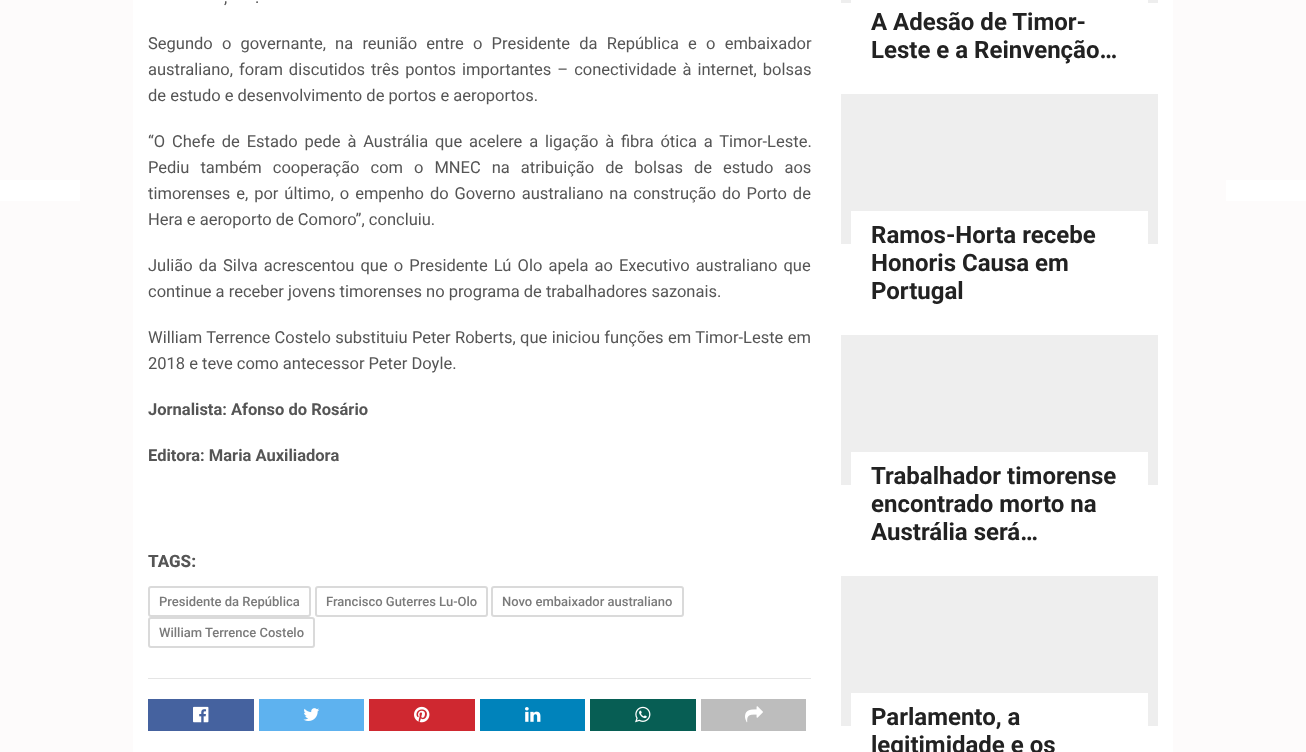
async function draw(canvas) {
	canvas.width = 1306;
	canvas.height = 752;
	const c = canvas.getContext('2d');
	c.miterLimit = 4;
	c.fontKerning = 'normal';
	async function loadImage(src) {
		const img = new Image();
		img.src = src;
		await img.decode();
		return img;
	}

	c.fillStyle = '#fdfbfb';
	c.fillRect(0, 0, 1306, 752);
	c.fillStyle = '#fff';
	c.fillRect(0, 180, 80, 21);
	c.fillRect(133, 0, 1040, 752);
	c.font = '16.5px Roboto';
	c.fillStyle = '#555';
	c.fillText(',', 224, 3);
	c.fillText('.', 255, 3);
	c.wordSpacing = '5.1px';
	c.fillText('Segundo o governante, na reunião entre o Presidente da República e o embaixador', 148, 49);
	c.wordSpacing = '1.9px';
	c.fillText('australiano, foram discutidos três pontos importantes – conectividade à internet, bolsas', 148, 75);
	c.wordSpacing = '0px';
	c.fillText('de estudo e desenvolvimento de portos e aeroportos.', 148, 101);
	c.wordSpacing = '2.75px';
	c.fillText('“O Chefe de Estado pede à Austrália que acelere a ligação à fibra ótica a Timor-Leste.', 148, 147);
	c.wordSpacing = '6.9px';
	c.fillText('Pediu também cooperação com o MNEC na atribuição de bolsas de estudo aos', 148, 173);
	c.wordSpacing = '1.8px';
	c.fillText('timorenses e, por último, o empenho do Governo australiano na construção do Porto de', 148, 199);
	c.wordSpacing = '0px';
	c.fillText('Hera e aeroporto de Comoro”, concluiu.', 148, 225);
	c.wordSpacing = '2px';
	c.fillText('Julião da Silva acrescentou que o Presidente Lú Olo apela ao Executivo australiano que', 148, 271);
	c.wordSpacing = '0px';
	c.fillText('continue a receber jovens timorenses no programa de trabalhadores sazonais.', 148, 297);
	c.wordSpacing = '0.25px';
	c.fillText('William Terrence Costelo substituiu Peter Roberts, que iniciou funções em Timor-Leste em', 148, 343);
	c.wordSpacing = '0px';
	c.fillText('2018 e teve como antecessor Peter Doyle.', 148, 369);
	c.font = 'bold 16.5px Roboto';
	c.fillText('Jornalista: Afonso do Rosário', 148, 415);
	c.fillText('Editora: Maria Auxiliadora', 148, 461);
	c.font = '800 17px Roboto';
	c.fillText('TAGS:', 148, 567);
	c.beginPath();
	c.roundRect(149, 587, 161, 29, 2);
	c.strokeStyle = '#dadada';
	c.lineWidth = 2;
	c.stroke();
	c.font = '500 13px Roboto';
	c.fillStyle = '#7a7a7a';
	c.fillText('Presidente da República', 159, 606);
	c.beginPath();
	c.roundRect(316, 587, 171, 29, 2);
	c.stroke();
	c.fillText('Francisco Guterres Lu-Olo', 326, 606);
	c.beginPath();
	c.roundRect(492, 587, 191, 29, 2);
	c.stroke();
	c.fillText('Novo embaixador australiano', 502, 606);
	c.beginPath();
	c.roundRect(149, 618, 165, 29, 2);
	c.stroke();
	c.fillText('William Terrence Costelo', 159, 637);
	c.fillStyle = '#e5e5e5';
	c.fillRect(148, 678, 663, 1);
	c.fillStyle = '#45629f';
	c.fillRect(148, 699, 106, 32);
	c.drawImage(await loadImage('img1.png'), 193, 706, 16, 17);
	c.fillStyle = '#5eb2ef';
	c.fillRect(259, 699, 105, 32);
	c.drawImage(await loadImage('img2.png'), 303, 708, 17, 13);
	c.fillStyle = '#cf2830';
	c.fillRect(369, 699, 106, 32);
	c.drawImage(await loadImage('img3.png'), 414, 706, 16, 17);
	c.fillStyle = '#0083bb';
	c.fillRect(480, 699, 105, 32);
	c.drawImage(await loadImage('img4.png'), 525, 707, 16, 15);
	c.fillStyle = '#075e54';
	c.fillRect(590, 699, 106, 32);
	c.drawImage(await loadImage('img5.png'), 635, 706, 16, 17);
	c.fillStyle = '#bdbdbd';
	c.fillRect(701, 699, 105, 32);
	c.drawImage(await loadImage('img6.png'), 745, 706, 18, 17);
	c.fillStyle = '#eee';
	c.fillRect(841, 0, 317, 3);
	c.fillStyle = '#fff';
	c.fillRect(851, 0, 297, 3);
	c.font = 'bold 24px Roboto';
	c.fillStyle = '#222';
	c.fillText('A Adesão de Timor-', 871, 30);
	c.fillText('Leste e a Reinvenção…', 871, 58);
	c.fillStyle = '#eee';
	c.fillRect(841, 94, 317, 150);
	c.fillStyle = '#fff';
	c.fillRect(851, 211, 297, 33);
	c.fillStyle = '#222';
	for (const [text, x, y] of [
		['Ramos-Horta recebe', 871, 243],
		['Honoris Causa em', 871, 271],
		['Portugal', 871, 299],
	]) {
		c.fillText(text, x, y);
	}
	c.fillStyle = '#eee';
	c.fillRect(841, 335, 317, 150);
	c.fillStyle = '#fff';
	c.fillRect(851, 452, 297, 33);
	c.fillStyle = '#222';
	for (const [text, x, y] of [
		['Trabalhador timorense', 871, 484],
		['encontrado morto na', 871, 512],
		['Austrália será…', 871, 540],
	]) {
		c.fillText(text, x, y);
	}
	c.fillStyle = '#eee';
	c.fillRect(841, 576, 317, 150);
	c.fillStyle = '#fff';
	c.fillRect(851, 693, 297, 33);
	c.fillStyle = '#222';
	c.fillText('Parlamento, a', 871, 725);
	c.fillText('legitimidade e os', 871, 753);
	c.fillStyle = '#fff';
	c.fillRect(1226, 180, 80, 21);
}

draw(document.querySelector('canvas'));
